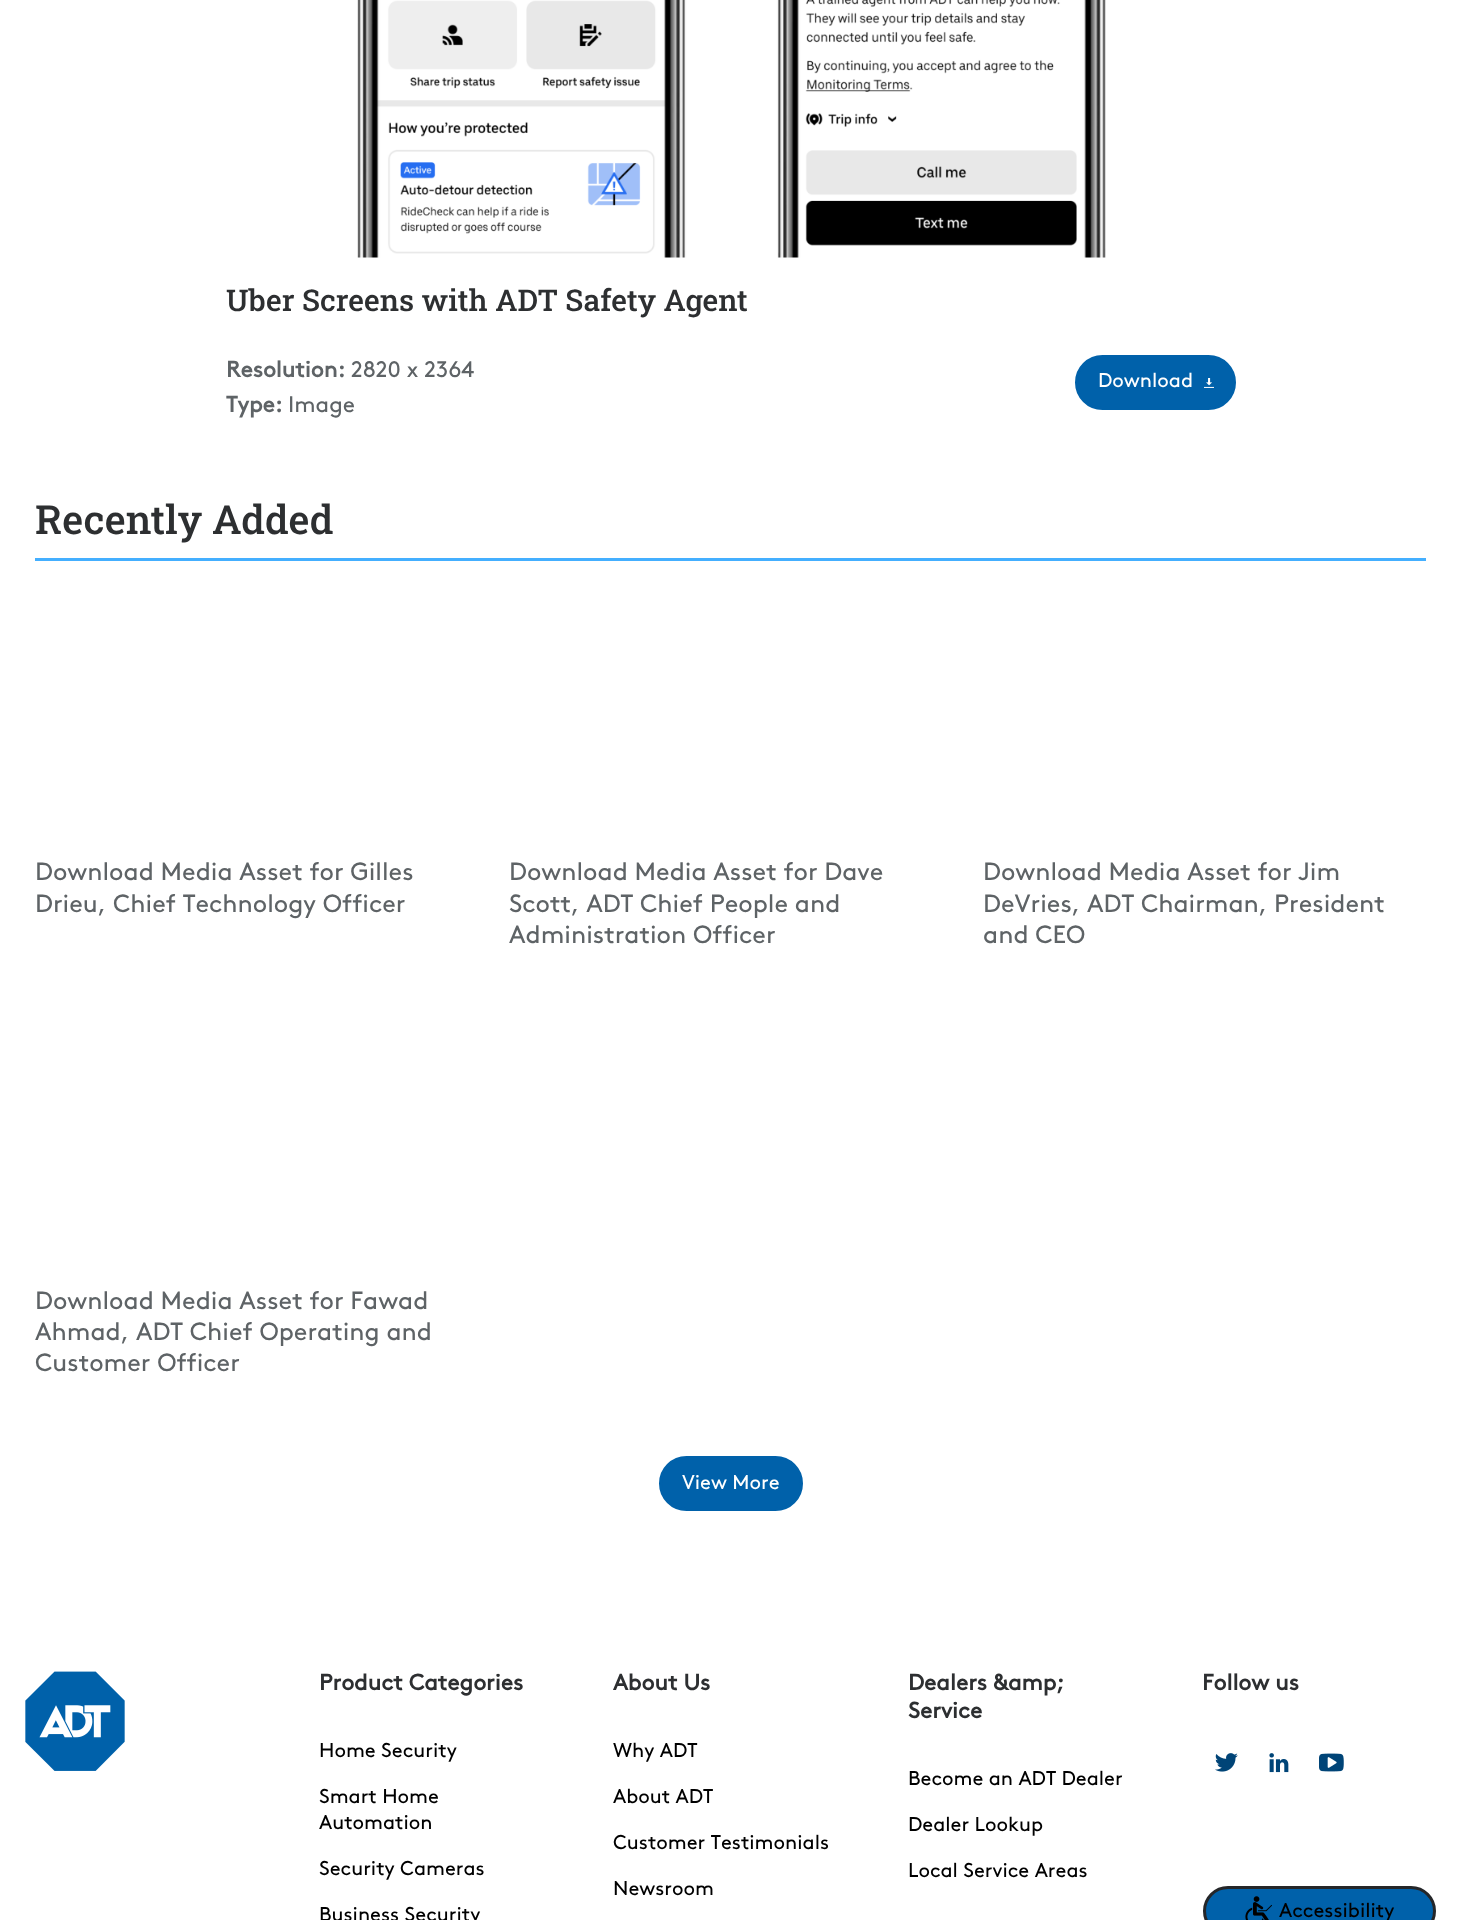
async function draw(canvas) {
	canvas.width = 1461;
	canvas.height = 1920;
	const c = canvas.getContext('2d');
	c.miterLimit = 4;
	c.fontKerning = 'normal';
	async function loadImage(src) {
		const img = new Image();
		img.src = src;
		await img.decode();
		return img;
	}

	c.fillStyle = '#fff';
	c.fillRect(0, 0, 1461, 1920);
	c.drawImage(await loadImage('img1.png'), 357, 0, 749, 258);
	c.font = '500 30px Roboto Slab';
	c.fillStyle = '#2d2f31';
	c.fillText('Uber Screens with ADT Safety Agent', 226, 311);
	c.font = 'bold 22.5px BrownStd';
	c.fillStyle = '#5e6366';
	c.fillText('Resolution:', 226, 377);
	c.font = '22.5px BrownStd';
	c.fillText('2820 x 2364', 351, 377);
	c.font = 'bold 22.5px BrownStd';
	c.fillText('Type:', 226, 412);
	c.font = '22.5px BrownStd';
	c.fillText('Image', 288, 412);
	c.fillStyle = '#0061aa';
	c.beginPath();
	c.roundRect(1076.5, 356.5, 158, 52, 26);
	c.fill();
	c.strokeStyle = '#0061aa';
	c.lineWidth = 3;
	c.stroke();
	c.font = '20px BrownStd';
	c.fillStyle = '#fff';
	c.fillText('Download', 1098, 387);
	c.drawImage(await loadImage('img2.png'), 1204, 378, 10, 10);
	c.font = '500 40px Roboto Slab';
	c.fillStyle = '#2d2f31';
	c.fillText('Recently Added', 35, 534);
	c.fillStyle = '#44afff';
	c.fillRect(35, 558, 1391, 3);
	c.font = '25px BrownStd';
	c.fillStyle = '#5e6366';
	for (const [text, x, y] of [
		['Download Media Asset for Gilles', 35, 880],
		['Drieu, Chief Technology Officer', 35, 912],
		['Download Media Asset for Dave', 509, 880],
		['Scott, ADT Chief People and', 509, 912],
		['Administration Officer', 509, 943],
		['Download Media Asset for Jim', 983, 880],
		['DeVries, ADT Chairman, President', 983, 912],
		['and CEO', 983, 943],
		['Download Media Asset for Fawad', 35, 1309],
		['Ahmad, ADT Chief Operating and', 35, 1340],
		['Customer Officer', 35, 1371],
	]) {
		c.fillText(text, x, y);
	}
	c.fillStyle = '#0061aa';
	c.beginPath();
	c.roundRect(660.5, 1457.5, 141, 52, 26);
	c.fill();
	c.stroke();
	c.font = '20px BrownStd';
	c.fillStyle = '#fff';
	c.fillText('View More', 682, 1489);
	c.drawImage(await loadImage('img3.png'), 25, 1671, 100, 100);
	c.font = 'bold 22.5px BrownStd';
	c.fillStyle = '#2d2f31';
	c.fillText('Product Categories', 319, 1690);
	c.font = '20px BrownStd';
	c.fillStyle = '#000';
	for (const [text, x, y] of [
		['Home Security', 319, 1757],
		['Smart Home', 319, 1803],
		['Automation', 319, 1829],
		['Security Cameras', 319, 1875],
		['Business Security', 319, 1921],
	]) {
		c.fillText(text, x, y);
	}
	c.font = 'bold 22.5px BrownStd';
	c.fillStyle = '#2d2f31';
	c.fillText('About Us', 613, 1690);
	c.font = '20px BrownStd';
	c.fillStyle = '#000';
	for (const [text, x, y] of [
		['Why ADT', 613, 1757],
		['About ADT', 613, 1803],
		['Customer Testimonials', 613, 1849],
		['Newsroom', 613, 1895],
	]) {
		c.fillText(text, x, y);
	}
	c.font = 'bold 22.5px BrownStd';
	c.fillStyle = '#2d2f31';
	c.fillText('Dealers &amp;', 908, 1690);
	c.fillText('Service', 908, 1718);
	c.font = '20px BrownStd';
	c.fillStyle = '#000';
	for (const [text, x, y] of [
		['Become an ADT Dealer', 908, 1785],
		['Dealer Lookup', 908, 1831],
		['Local Service Areas', 908, 1877],
	]) {
		c.fillText(text, x, y);
	}
	c.font = 'bold 22.5px BrownStd';
	c.fillStyle = '#2d2f31';
	c.fillText('Follow us', 1202, 1690);
	c.drawImage(await loadImage('img4.png'), 1215, 1753, 23, 19);
	c.drawImage(await loadImage('img5.png'), 1269, 1753, 20, 20);
	c.drawImage(await loadImage('img6.png'), 1319, 1753, 25, 19);
	c.fillStyle = '#0061aa';
	c.beginPath();
	c.roundRect(1204.5, 1887.5, 230, 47, 23.5);
	c.fill();
	c.strokeStyle = '#242629';
	c.stroke();
	c.drawImage(await loadImage('img7.png'), 1245, 1896, 27, 24);
	c.font = '20px BrownStd';
	c.fillStyle = '#000';
	c.fillText('Accessibility', 1279, 1917);
}

draw(document.querySelector('canvas'));
